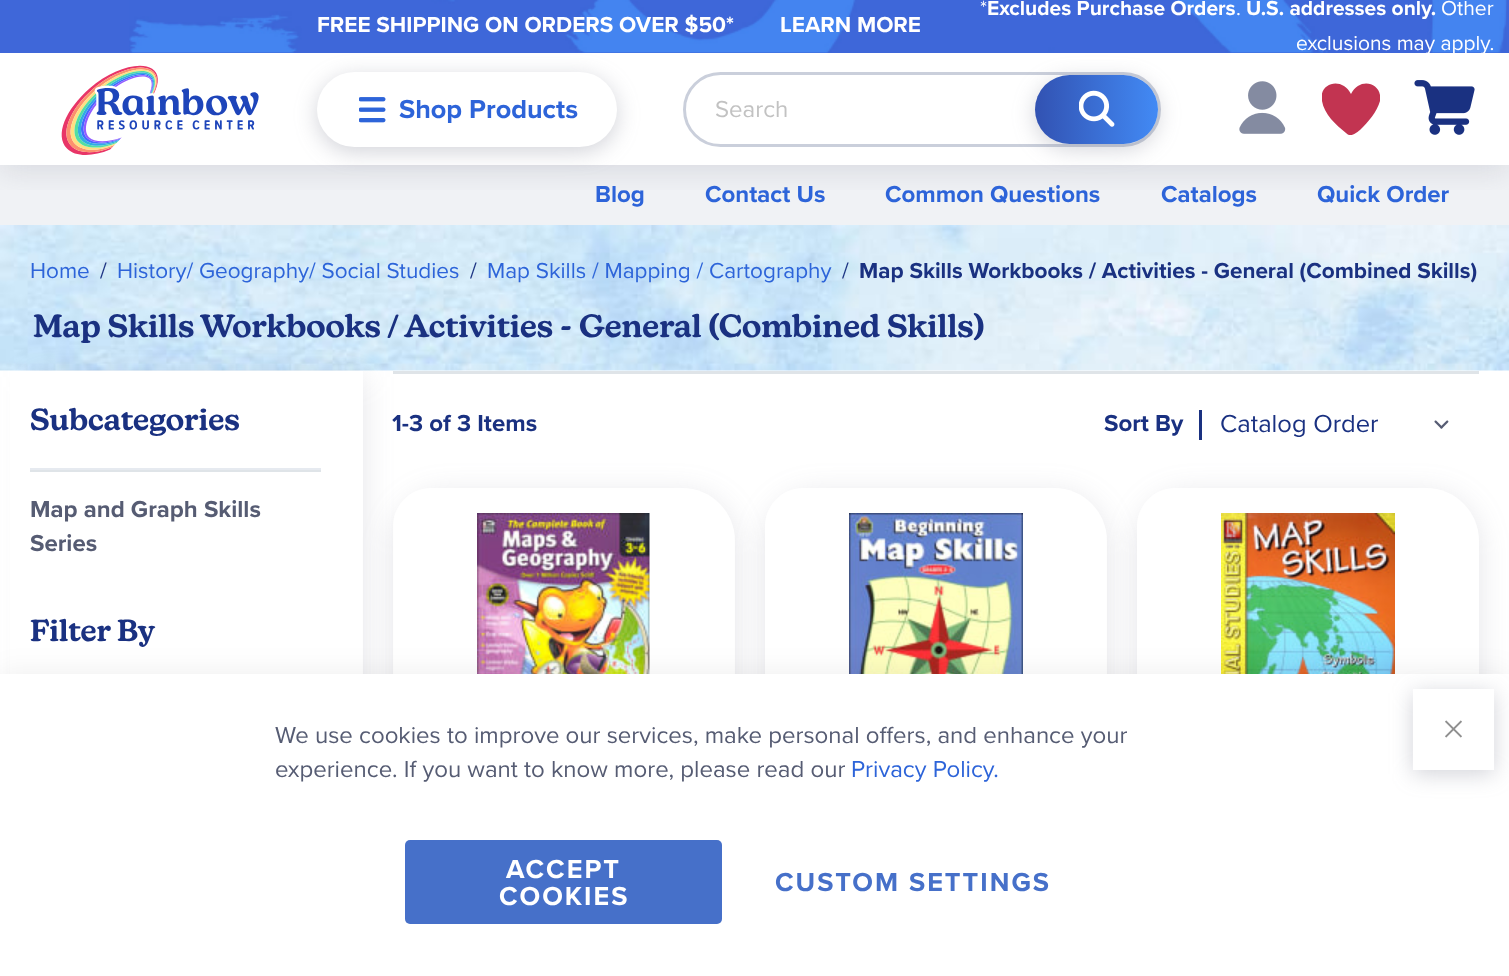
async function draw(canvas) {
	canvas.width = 1509;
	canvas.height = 976;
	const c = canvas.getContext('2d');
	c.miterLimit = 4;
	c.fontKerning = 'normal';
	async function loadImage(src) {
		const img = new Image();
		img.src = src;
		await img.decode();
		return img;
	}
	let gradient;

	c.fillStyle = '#fff';
	c.fillRect(0, 0, 1509, 976);
	c.fillStyle = '#f0f2f5';
	c.fillRect(0, 165, 1509, 60);
	c.save();
	c.beginPath();
	c.rect(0, 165, 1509, 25);
	c.clip();
	c.fillStyle = '#767a8c33';
	c.filter = 'blur(15px)';
	c.beginPath();
	c.rect(0, 6, 1509, 165);
	c.fill();
	c.filter = 'none';
	c.restore();
	c.fillStyle = '#3f67d9';
	c.fillRect(0, 0, 1509, 53);
	c.drawImage(await loadImage('img1.png'), 129, 0, 1378, 53);
	c.font = 'bold 22.5px Proxima Nova';
	c.fillStyle = '#fff';
	c.fillText('FREE SHIPPING ON ORDERS OVER $50*', 317, 32);
	c.fillText('LEARN MORE', 780, 32);
	c.font = '21px Proxima Nova';
	c.fillText('*', 980, 15);
	c.font = 'bold 21px Proxima Nova';
	c.fillText('Excludes Purchase Orders', 987, 15);
	c.font = '21px Proxima Nova';
	c.fillText('.', 1236, 15);
	c.font = 'bold 21px Proxima Nova';
	c.fillText('U.S. addresses only.', 1246, 15);
	c.font = '21px Proxima Nova';
	c.fillText('Other', 1441, 15);
	c.fillText('exclusions may apply.', 1296, 50);
	c.drawImage(await loadImage('img2.png'), 61, 65, 198, 90);
	c.fillStyle = '#767a8c54';
	c.filter = 'blur(11px)';
	c.beginPath();
	c.roundRect(317, 77, 300, 75, 37.5);
	c.fill();
	c.filter = 'none';
	c.fillStyle = '#fff';
	c.beginPath();
	c.roundRect(317, 72, 300, 75, 37.5);
	c.fill();
	c.drawImage(await loadImage('img3.png'), 359, 97, 27, 26);
	c.font = 'bold 27px Proxima Nova';
	c.fillStyle = '#2d64d9';
	c.fillText('Shop Products', 399, 118);
	c.beginPath();
	c.roundRect(684.5, 73.5, 475, 72, 36);
	c.strokeStyle = '#cacfdb';
	c.lineWidth = 3;
	c.stroke();
	c.font = '24px Proxima Nova';
	c.fillStyle = '#c2c2c2';
	c.fillText('Search', 715, 117);
	c.fillStyle = '#767a8c54';
	c.filter = 'blur(11px)';
	c.beginPath();
	c.roundRect(1035, 80, 123, 69, 34.5);
	c.fill();
	c.filter = 'none';
	gradient = c.createLinearGradient(1035, 110, 1158, 110);
	gradient.addColorStop(0, '#3252b2');
	gradient.addColorStop(1, '#428af5');
	c.fillStyle = gradient;
	c.beginPath();
	c.roundRect(1035, 75, 123, 69, 34.5);
	c.fill();
	c.drawImage(await loadImage('img4.png'), 1079, 90, 36, 37);
	c.drawImage(await loadImage('img5.png'), 1239, 81, 47, 53);
	c.save();
	c.beginPath();
	c.rect(1322, 68, 58, 82);
	c.clip();
	c.fillStyle = '#c23451';
	c.beginPath();
	c.moveTo(1346, 133);
	c.bezierCurveTo(1351, 138, 1356, 133, 1360, 130);
	c.bezierCurveTo(1368, 122, 1377, 112, 1380, 101);
	c.bezierCurveTo(1383, 83, 1360, 76, 1351, 94);
	c.bezierCurveTo(1342, 76, 1318, 83, 1322, 101);
	c.bezierCurveTo(1324, 114, 1336, 125, 1346, 133);
	c.closePath();
	c.fill();
	c.restore();
	c.drawImage(await loadImage('img6.png'), 1414, 80, 61, 55);
	c.font = 'bold 24px Proxima Nova';
	c.fillStyle = '#2d64d9';
	for (const [text, x, y] of [
		['Blog', 595, 202],
		['Contact Us', 705, 202],
		['Common Questions', 885, 202],
		['Catalogs', 1161, 202],
		['Quick Order', 1317, 202],
	]) {
		c.fillText(text, x, y);
	}
	c.drawImage(await loadImage('img7.png'), 0, 225, 1509, 146);
	c.font = '22.5px Proxima Nova';
	c.fillText('Home', 30, 278);
	c.fillStyle = '#1a3181';
	c.fillText('/', 100, 278);
	c.fillStyle = '#2d64d9';
	c.fillText('History/ Geography/ Social Studies', 117, 278);
	c.fillStyle = '#1a3181';
	c.fillText('/', 470, 278);
	c.fillStyle = '#2d64d9';
	c.fillText('Map Skills / Mapping / Cartography', 487, 278);
	c.fillStyle = '#1a3181';
	c.fillText('/', 842, 278);
	c.font = 'bold 22.5px Proxima Nova';
	c.fillText('Map Skills Workbooks / Activities - General (Combined Skills)', 859, 278);
	c.font = '600 31.5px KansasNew';
	c.fillText('Map Skills Workbooks / Activities - General (Combined Skills)', 33, 337);
	c.fillStyle = '#dfe4e8';
	c.fillRect(393, 371, 1086, 3);
	c.fillStyle = '#767a8c33';
	c.filter = 'blur(15px)';
	c.beginPath();
	c.roundRect(393, 494, 342, 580, 53);
	c.fill();
	c.filter = 'none';
	c.fillStyle = '#fff';
	c.beginPath();
	c.moveTo(431, 488);
	c.lineTo(682, 488);
	c.bezierCurveTo(711.5, 488, 735, 511.5, 735, 541);
	c.lineTo(735, 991);
	c.bezierCurveTo(735, 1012, 718, 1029, 697, 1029);
	c.lineTo(446, 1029);
	c.bezierCurveTo(416.5, 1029, 393, 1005.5, 393, 976);
	c.lineTo(393, 526);
	c.bezierCurveTo(393, 505, 410, 488, 431, 488);
	c.closePath();
	c.fill();
	c.save();
	c.beginPath();
	c.moveTo(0, 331);
	c.lineTo(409, 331);
	c.lineTo(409, 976);
	c.lineTo(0, 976);
	c.closePath();
	c.moveTo(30, 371);
	c.lineTo(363, 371);
	c.lineTo(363, 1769);
	c.lineTo(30, 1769);
	c.closePath();
	c.clip('evenodd');
	c.fillStyle = '#767a8c33';
	c.filter = 'blur(15px)';
	c.beginPath();
	c.rect(30, 377, 333, 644);
	c.fill();
	c.filter = 'none';
	c.restore();
	c.fillRect(10, 371, 20, 303);
	c.fillStyle = '#e6eaf0';
	c.fillRect(30, 468, 291, 2);
	c.font = '600 30px KansasNew';
	c.fillStyle = '#1a3181';
	c.fillText('Subcategories', 30, 430);
	c.fillStyle = '#dfe4e8';
	c.fillRect(30, 470, 291, 2);
	c.font = 'bold 24px Proxima Nova';
	c.fillStyle = '#565c73';
	c.fillText('Map and Graph Skills', 30, 517);
	c.fillText('Series', 30, 551);
	c.font = '600 30px KansasNew';
	c.fillStyle = '#1a3181';
	c.fillText('Filter By', 30, 641);
	c.font = 'bold 24px Proxima Nova';
	c.fillText('1-3 of 3 Items', 392, 431);
	c.fillText('Sort By', 1104, 431);
	c.drawImage(await loadImage('img8.png'), 1434, 420, 15, 9);
	c.fillRect(1199, 410, 3, 30);
	c.font = '25.5px Proxima Nova';
	c.fillText('Catalog Order', 1220, 432);
	c.drawImage(await loadImage('img9.png'), 477, 513, 173, 161);
	c.fillStyle = '#767a8c33';
	c.filter = 'blur(15px)';
	c.beginPath();
	c.roundRect(765, 494, 342, 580, 53);
	c.fill();
	c.filter = 'none';
	c.fillStyle = '#fff';
	c.beginPath();
	c.moveTo(803, 488);
	c.lineTo(1054, 488);
	c.bezierCurveTo(1083.5, 488, 1107, 511.5, 1107, 541);
	c.lineTo(1107, 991);
	c.bezierCurveTo(1107, 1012, 1090, 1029, 1069, 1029);
	c.lineTo(818, 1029);
	c.bezierCurveTo(788.5, 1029, 765, 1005.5, 765, 976);
	c.lineTo(765, 526);
	c.bezierCurveTo(765, 505, 782, 488, 803, 488);
	c.closePath();
	c.fill();
	c.drawImage(await loadImage('img10.png'), 849, 513, 174, 161);
	c.fillStyle = '#767a8c33';
	c.filter = 'blur(15px)';
	c.beginPath();
	c.roundRect(1137, 494, 342, 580, 53);
	c.fill();
	c.filter = 'none';
	c.fillStyle = '#fff';
	c.beginPath();
	c.moveTo(1175, 488);
	c.lineTo(1426, 488);
	c.bezierCurveTo(1455.5, 488, 1479, 511.5, 1479, 541);
	c.lineTo(1479, 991);
	c.bezierCurveTo(1479, 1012, 1462, 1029, 1441, 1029);
	c.lineTo(1190, 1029);
	c.bezierCurveTo(1160.5, 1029, 1137, 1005.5, 1137, 976);
	c.lineTo(1137, 526);
	c.bezierCurveTo(1137, 505, 1154, 488, 1175, 488);
	c.closePath();
	c.fill();
	c.drawImage(await loadImage('img11.png'), 1221, 513, 174, 161);
	c.fillStyle = '#0000000f';
	c.filter = 'blur(13.5px)';
	c.beginPath();
	c.rect(0, 671, 1509, 303);
	c.fill();
	c.filter = 'none';
	c.fillStyle = '#fff';
	c.fillRect(0, 674, 1509, 302);
	c.font = '24px Proxima Nova';
	c.fillStyle = '#565c73';
	c.fillText('We use cookies to improve our services, make personal offers, and enhance your', 275, 743);
	c.fillText('experience. If you want to know more, please read our', 275, 777);
	c.fillStyle = '#2d64d9';
	c.fillText('Privacy Policy.', 851, 777);
	c.fillStyle = '#4670c9';
	c.beginPath();
	c.roundRect(405, 840, 317, 84, 5);
	c.fill();
	c.letterSpacing = '2px';
	c.font = 'bold 27px Proxima Nova';
	c.fillStyle = '#fff';
	c.fillText('ACCEPT', 506, 878);
	c.fillText('COOKIES', 499, 905);
	c.fillStyle = '#4670c9';
	c.fillText('CUSTOM SETTINGS', 775, 891);
	c.save();
	c.beginPath();
	c.moveTo(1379, 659);
	c.lineTo(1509, 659);
	c.lineTo(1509, 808);
	c.lineTo(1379, 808);
	c.closePath();
	c.moveTo(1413, 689);
	c.lineTo(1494, 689);
	c.lineTo(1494, 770);
	c.lineTo(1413, 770);
	c.closePath();
	c.clip('evenodd');
	c.fillStyle = '#767a8c54';
	c.filter = 'blur(11px)';
	c.beginPath();
	c.rect(1413, 693, 81, 81);
	c.fill();
	c.filter = 'none';
	c.restore();
	c.drawImage(await loadImage('img12.png'), 1445, 720, 17, 18);
}

draw(document.querySelector('canvas'));
